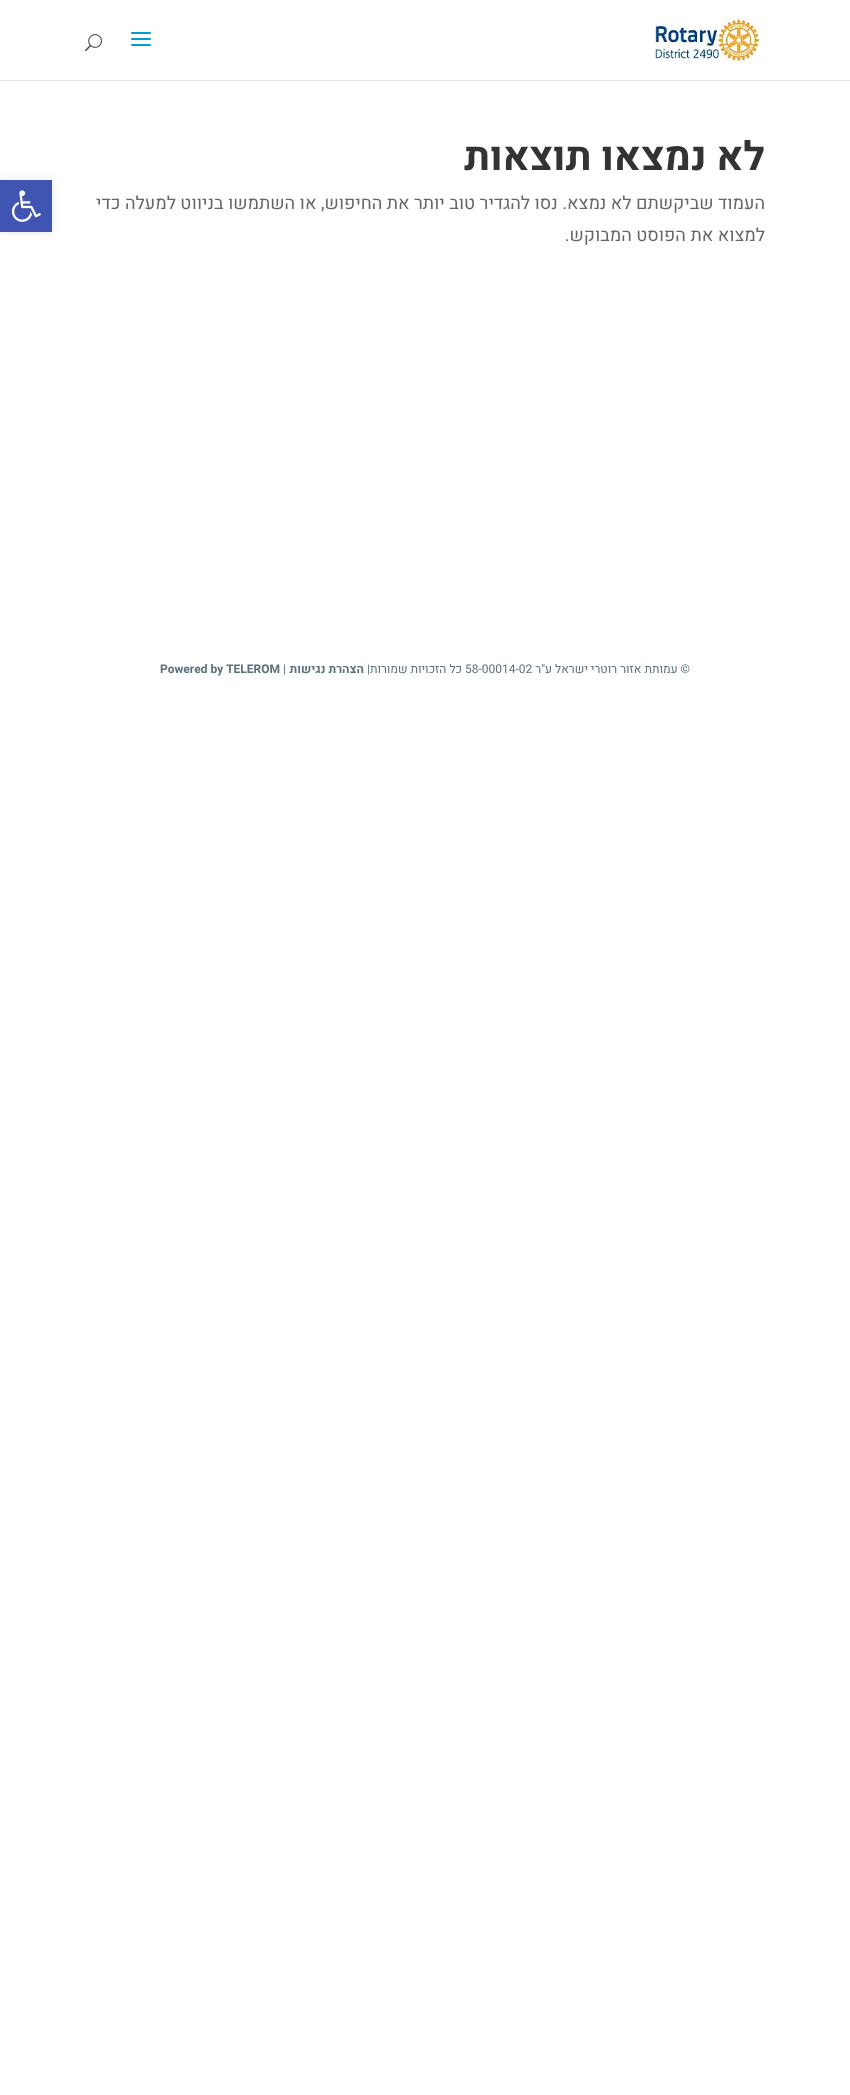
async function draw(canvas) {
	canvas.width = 850;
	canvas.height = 2095;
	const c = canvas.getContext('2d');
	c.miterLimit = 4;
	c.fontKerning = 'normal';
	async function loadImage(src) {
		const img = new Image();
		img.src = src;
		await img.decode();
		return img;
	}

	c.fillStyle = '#fff';
	c.fillRect(0, 0, 850, 2095);
	c.fillStyle = '#e6e6e6';
	c.fillRect(0, 80, 850, 1);
	c.drawImage(await loadImage('img1.png'), 655, 18, 106, 44);
	c.drawImage(await loadImage('img2.png'), 131, 32, 20, 14);
	c.drawImage(await loadImage('img3.png'), 85, 34, 17, 18);
	c.direction = 'rtl';
	c.font = 'bold 40px Heebo';
	c.fillStyle = '#333';
	c.fillText('לא נמצאו תוצאות', 765, 170);
	c.font = '18px Heebo';
	c.fillStyle = '#666';
	c.fillText('העמוד שביקשתם לא נמצא. נסו להגדיר טוב יותר את החיפוש, או השתמשו בניווט למעלה כדי', 765, 209);
	c.fillText('למצוא את הפוסט המבוקש.', 765, 241);
	c.font = '12px Heebo';
	c.fillStyle = '#5e717d';
	c.fillText('© עמותת אזור רוטרי ישראל ע"ר', 690, 673);
	c.direction = 'ltr';
	c.fillText('58-00014-02', 465, 673);
	c.direction = 'rtl';
	c.fillText('כל הזכויות שמורות|', 462, 673);
	c.font = 'bold 12px Heebo';
	c.fillText('הצהרת נגישות', 364, 673);
	c.direction = 'ltr';
	c.font = '12px Heebo';
	c.fillText('|', 283, 673);
	c.font = 'bold 12px Heebo';
	c.fillText('Powered by TELEROM', 160, 673);
	c.fillStyle = '#0000001a';
	c.filter = 'blur(5px)';
	c.beginPath();
	c.rect(0, 180, 52, 52);
	c.fill();
	c.filter = 'none';
	c.fillStyle = '#4054b2';
	c.fillRect(0, 180, 52, 52);
	c.drawImage(await loadImage('img4.png'), 11, 190, 30, 32);
}

draw(document.querySelector('canvas'));
